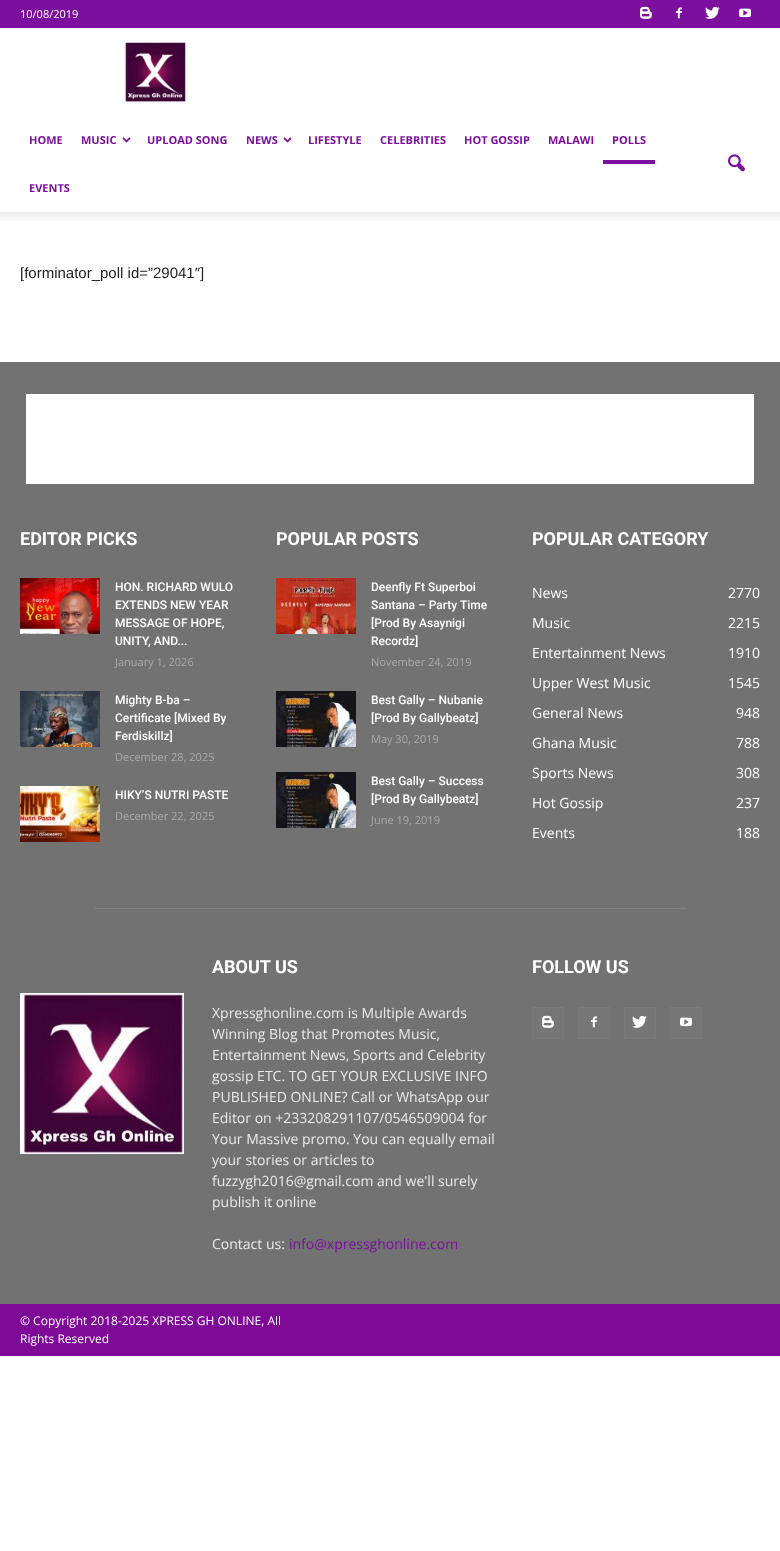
async function draw(canvas) {
	canvas.width = 780;
	canvas.height = 1551;
	const c = canvas.getContext('2d');
	c.miterLimit = 4;
	c.fontKerning = 'normal';
	async function loadImage(src) {
		const img = new Image();
		img.src = src;
		await img.decode();
		return img;
	}

	c.fillStyle = '#fff';
	c.fillRect(0, 0, 780, 1551);
	c.fillStyle = '#7c0f9e';
	c.fillRect(0, 0, 780, 28);
	c.font = '11px Open Sans';
	c.fillStyle = '#fff';
	c.fillText('10/08/2019', 20, 18);
	c.drawImage(await loadImage('img1.png'), 640, 6, 12, 13);
	c.drawImage(await loadImage('img2.png'), 676, 7, 6, 12);
	c.drawImage(await loadImage('img3.png'), 705, 6, 15, 13);
	c.drawImage(await loadImage('img4.png'), 739, 8, 12, 10);
	c.drawImage(await loadImage('img5.png'), 124, 42, 62, 60);
	c.font = 'bold 11px Open Sans';
	c.fillStyle = '#7c0f9e';
	c.fillText('HOME', 29, 144);
	c.fillText('MUSIC', 81, 144);
	c.drawImage(await loadImage('img6.png'), 122, 137, 9, 6);
	c.fillText('UPLOAD SONG', 147, 144);
	c.fillText('NEWS', 246, 144);
	c.drawImage(await loadImage('img6.png'), 283, 137, 9, 6);
	for (const [text, x, y] of [
		['LIFESTYLE', 308, 144],
		['CELEBRITIES', 380, 144],
		['HOT GOSSIP', 464, 144],
		['MALAWI', 548, 144],
		['POLLS', 612, 144],
	]) {
		c.fillText(text, x, y);
	}
	c.fillRect(603, 160, 52, 4);
	c.fillText('EVENTS', 29, 192);
	c.drawImage(await loadImage('img7.png'), 728, 154, 17, 18);
	c.drawImage(await loadImage('img8.png'), 0, 212, 780, 9);
	c.font = '15px Liberation Sans';
	c.fillStyle = '#222';
	c.fillText('[forminator_poll id=”29041″]', 20, 278);
	c.fillStyle = '#727272';
	c.fillRect(0, 362, 780, 942);
	c.fillStyle = '#fff';
	c.fillRect(26, 394, 728, 90);
	c.font = 'bold 18px Roboto';
	c.fillText('EDITOR PICKS', 20, 545);
	c.drawImage(await loadImage('img9.png'), 20, 578, 80, 56);
	c.font = '500 12px Roboto';
	for (const [text, x, y] of [
		['HON. RICHARD WULO', 115, 591],
		['EXTENDS NEW YEAR', 115, 609],
		['MESSAGE OF HOPE,', 115, 627],
		['UNITY, AND...', 115, 645],
	]) {
		c.fillText(text, x, y);
	}
	c.font = '11px Open Sans';
	c.fillStyle = '#aaa';
	c.fillText('January 1, 2026', 115, 666);
	c.drawImage(await loadImage('img10.png'), 20, 691, 80, 56);
	c.font = '500 12px Roboto';
	c.fillStyle = '#fff';
	for (const [text, x, y] of [
		['Mighty B-ba –', 115, 704],
		['Certificate [Mixed By', 115, 722],
		['Ferdiskillz]', 115, 740],
	]) {
		c.fillText(text, x, y);
	}
	c.font = '11px Open Sans';
	c.fillStyle = '#aaa';
	c.fillText('December 28, 2025', 115, 761);
	c.drawImage(await loadImage('img11.png'), 20, 786, 80, 56);
	c.font = '500 12px Roboto';
	c.fillStyle = '#fff';
	c.fillText('HIKY’S NUTRI PASTE', 115, 799);
	c.font = '11px Open Sans';
	c.fillStyle = '#aaa';
	c.fillText('December 22, 2025', 115, 820);
	c.font = 'bold 18px Roboto';
	c.fillStyle = '#fff';
	c.fillText('POPULAR POSTS', 276, 545);
	c.drawImage(await loadImage('img12.png'), 276, 578, 80, 56);
	c.font = '500 12px Roboto';
	for (const [text, x, y] of [
		['Deenfly Ft Superboi', 371, 591],
		['Santana – Party Time', 371, 609],
		['[Prod By Asaynigi', 371, 627],
		['Recordz]', 371, 645],
	]) {
		c.fillText(text, x, y);
	}
	c.font = '11px Open Sans';
	c.fillStyle = '#aaa';
	c.fillText('November 24, 2019', 371, 666);
	c.drawImage(await loadImage('img13.png'), 276, 691, 80, 56);
	c.font = '500 12px Roboto';
	c.fillStyle = '#fff';
	c.fillText('Best Gally – Nubanie', 371, 704);
	c.fillText('[Prod By Gallybeatz]', 371, 722);
	c.font = '11px Open Sans';
	c.fillStyle = '#aaa';
	c.fillText('May 30, 2019', 371, 743);
	c.drawImage(await loadImage('img14.png'), 276, 772, 80, 56);
	c.font = '500 12px Roboto';
	c.fillStyle = '#fff';
	c.fillText('Best Gally – Success', 371, 785);
	c.fillText('[Prod By Gallybeatz]', 371, 803);
	c.font = '11px Open Sans';
	c.fillStyle = '#aaa';
	c.fillText('June 19, 2019', 371, 824);
	c.font = 'bold 18px Roboto';
	c.fillStyle = '#fff';
	c.fillText('POPULAR CATEGORY', 532, 545);
	c.font = '14px Open Sans';
	for (const [text, x, y] of [
		['News', 532, 598],
		['2770', 728, 598],
		['Music', 532, 628],
		['2215', 728, 628],
		['Entertainment News', 532, 658],
		['1910', 728, 658],
		['Upper West Music', 532, 688],
		['1545', 728, 688],
		['General News', 532, 718],
		['948', 736, 718],
		['Ghana Music', 532, 748],
		['788', 736, 748],
		['Sports News', 532, 778],
		['308', 736, 778],
		['Hot Gossip', 532, 808],
		['237', 736, 808],
		['Events', 532, 838],
		['188', 736, 838],
	]) {
		c.fillText(text, x, y);
	}
	c.fillStyle = '#808080';
	c.fillRect(94, 908, 592, 1);
	c.font = 'bold 18px Roboto';
	c.fillStyle = '#fff';
	c.fillText('ABOUT US', 212, 973);
	c.font = '14px Open Sans';
	c.fillStyle = '#eaeaea';
	for (const [text, x, y] of [
		['Xpressghonline.com is Multiple Awards', 212, 1018],
		['Winning Blog that Promotes Music,', 212, 1039],
		['Entertainment News, Sports and Celebrity', 212, 1060],
		['gossip ETC. TO GET YOUR EXCLUSIVE INFO', 212, 1081],
		['PUBLISHED ONLINE? Call or WhatsApp our', 212, 1102],
		['Editor on +233208291107/0546509004 for', 212, 1123],
		['Your Massive promo. You can equally email', 212, 1144],
		['your stories or articles to', 212, 1165],
		['fuzzygh2016@gmail.com and we\'ll surely', 212, 1186],
		['publish it online', 212, 1207],
		['Contact us:', 212, 1249],
	]) {
		c.fillText(text, x, y);
	}
	c.fillStyle = '#7c0f9e';
	c.fillText('info@xpressghonline.com', 289, 1249);
	c.font = 'bold 18px Roboto';
	c.fillStyle = '#fff';
	c.fillText('FOLLOW US', 532, 973);
	c.fillStyle = '#767676';
	c.fillRect(533, 1008, 30, 30);
	c.drawImage(await loadImage('img15.png'), 542, 1015, 12, 13);
	c.strokeStyle = '#7a7a7a';
	c.strokeRect(532.5, 1007.5, 31, 31);
	c.fillRect(579, 1008, 30, 30);
	c.drawImage(await loadImage('img16.png'), 591, 1016, 6, 12);
	c.strokeRect(578.5, 1007.5, 31, 31);
	c.fillRect(625, 1008, 30, 30);
	c.drawImage(await loadImage('img17.png'), 632, 1015, 15, 13);
	c.strokeRect(624.5, 1007.5, 31, 31);
	c.fillRect(671, 1008, 30, 30);
	c.drawImage(await loadImage('img18.png'), 680, 1017, 12, 10);
	c.strokeRect(670.5, 1007.5, 31, 31);
	c.drawImage(await loadImage('img19.png'), 20, 993, 164, 161);
	c.fillStyle = '#7e0996';
	c.fillRect(0, 1304, 780, 52);
	c.font = '12px Open Sans';
	c.fillStyle = '#fff';
	c.fillText('© Copyright 2018-2025 XPRESS GH ONLINE, All', 20, 1325);
	c.fillText('Rights Reserved', 20, 1343);
}

draw(document.querySelector('canvas'));
